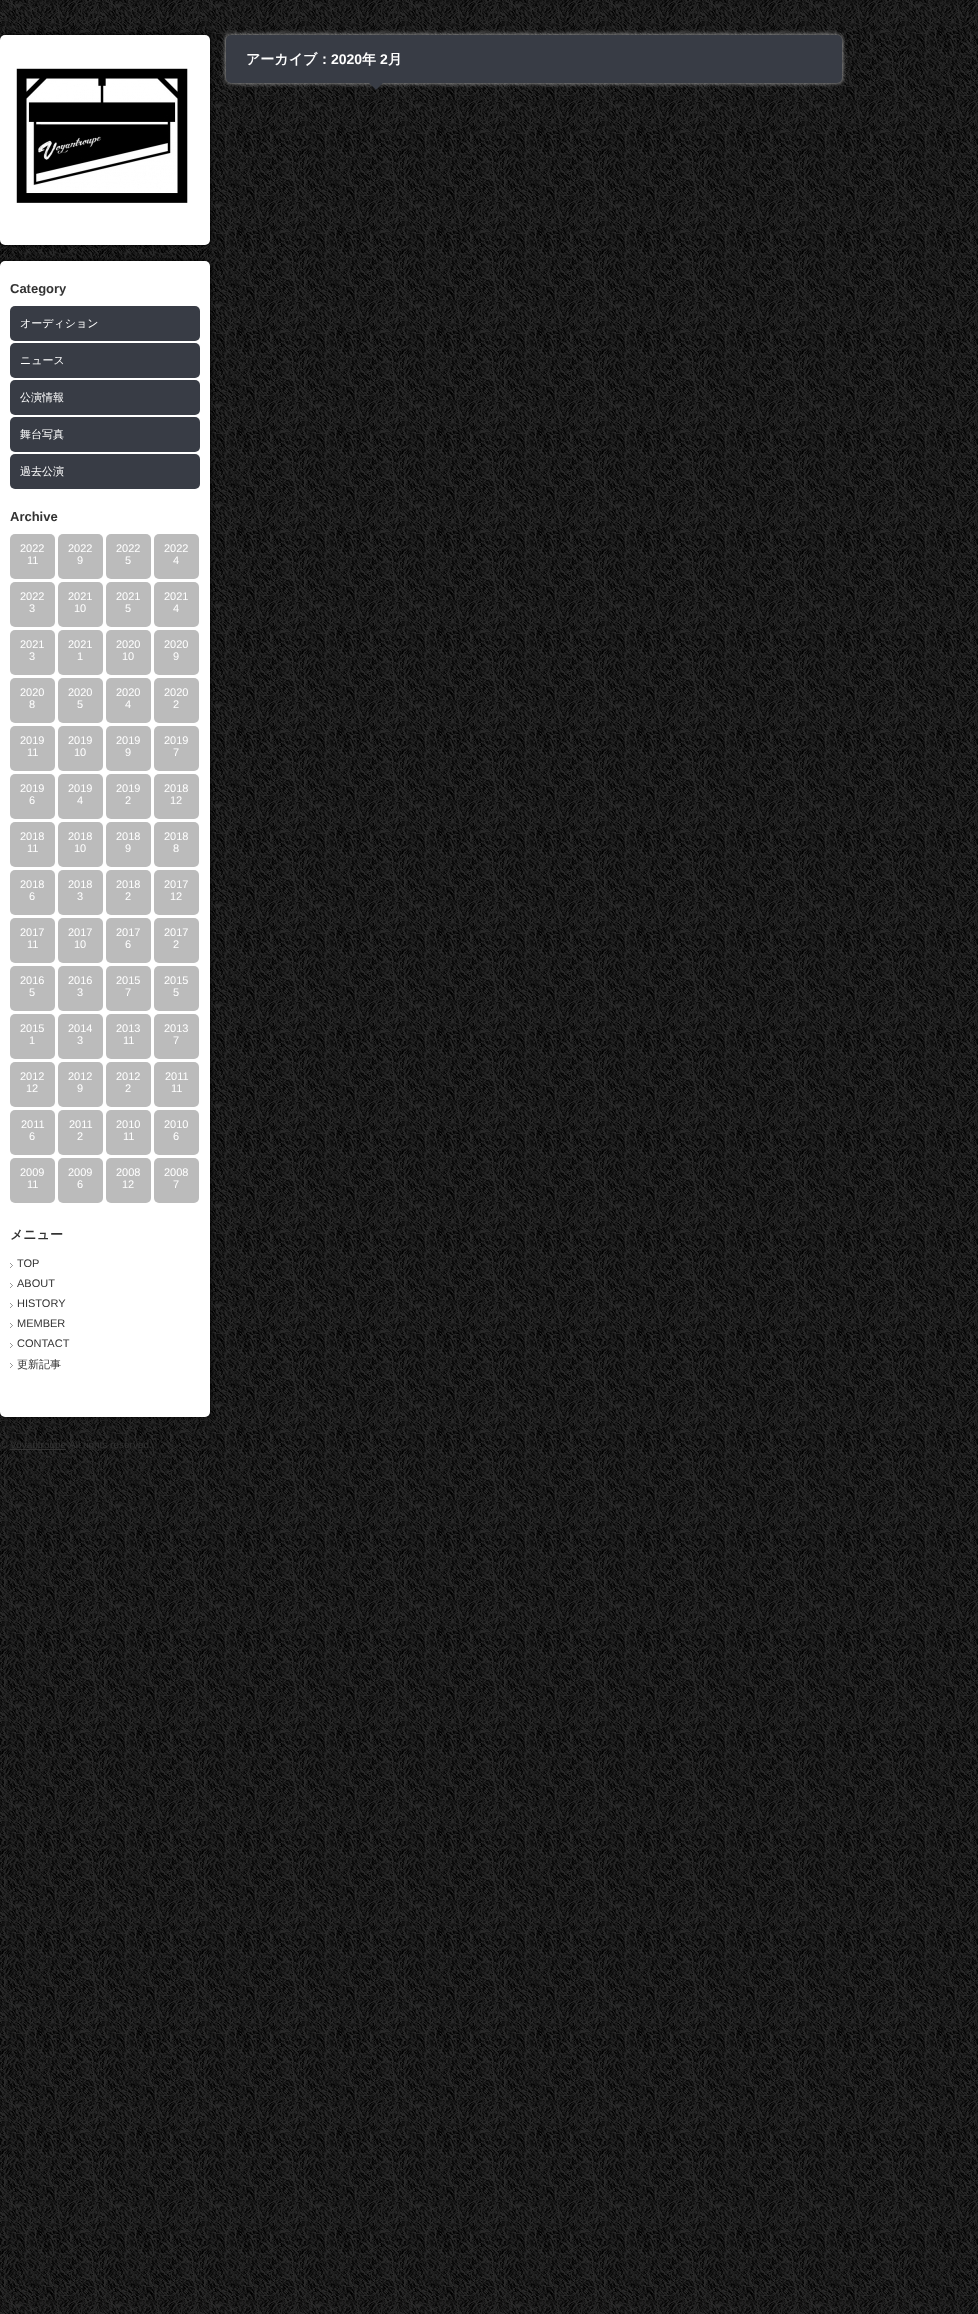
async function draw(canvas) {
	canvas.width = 978;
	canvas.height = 2314;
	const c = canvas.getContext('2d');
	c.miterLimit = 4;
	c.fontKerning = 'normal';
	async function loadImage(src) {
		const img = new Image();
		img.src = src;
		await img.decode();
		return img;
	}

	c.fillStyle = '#fff';
	c.fillRect(0, 0, 978, 2314);
	c.drawImage(await loadImage('img1.png'), 0, 0, 978, 2314);
	c.fillStyle = '#bbb';
	c.filter = 'blur(2.5px)';
	c.beginPath();
	c.roundRect(226, 35, 616, 48, 5);
	c.fill();
	c.filter = 'none';
	c.fillStyle = '#383c45';
	c.beginPath();
	c.roundRect(226, 35, 616, 48, 5);
	c.fill();
	c.font = 'bold 14px WenQuanYi Zen Hei';
	c.fillStyle = '#fff';
	c.fillText('アーカイブ：', 246, 64);
	c.font = 'bold 14px Liberation Sans';
	c.fillText('2020', 331, 64);
	c.font = 'bold 14px WenQuanYi Zen Hei';
	c.fillText('年', 362, 64);
	c.font = 'bold 14px Liberation Sans';
	c.fillText('2', 380, 64);
	c.font = 'bold 14px WenQuanYi Zen Hei';
	c.fillText('月', 388, 64);
	c.fillStyle = '#383c45';
	c.beginPath();
	c.moveTo(366, 80);
	c.lineTo(386, 80);
	c.lineTo(376, 90);
	c.closePath();
	c.fill();
	c.fillStyle = '#000';
	c.filter = 'blur(2.5px)';
	c.beginPath();
	c.roundRect(0, 35, 210, 210, 5);
	c.fill();
	c.filter = 'none';
	c.fillStyle = '#fff';
	c.beginPath();
	c.roundRect(0, 35, 210, 210, 5);
	c.fill();
	c.drawImage(await loadImage('img2.png'), 16, 68, 172, 135);
	c.fillStyle = '#000';
	c.filter = 'blur(2.5px)';
	c.beginPath();
	c.roundRect(0, 261, 210, 1156, 5);
	c.fill();
	c.filter = 'none';
	c.fillStyle = '#fff';
	c.beginPath();
	c.roundRect(0, 261, 210, 1156, 5);
	c.fill();
	c.font = 'bold 13px Liberation Sans';
	c.fillStyle = '#333';
	c.fillText('Category', 10, 293);
	c.fillStyle = '#383c45';
	c.beginPath();
	c.roundRect(10, 306, 190, 35, 5);
	c.fill();
	c.font = '500 11px WenQuanYi Zen Hei';
	c.fillStyle = '#fff';
	c.fillText('オーディション', 20, 327);
	c.fillStyle = '#383c45';
	c.beginPath();
	c.roundRect(10, 343, 190, 35, 5);
	c.fill();
	c.fillStyle = '#fff';
	c.fillText('ニュース', 20, 364);
	c.fillStyle = '#383c45';
	c.beginPath();
	c.roundRect(10, 380, 190, 35, 5);
	c.fill();
	c.fillStyle = '#fff';
	c.fillText('公演情報', 20, 401);
	c.fillStyle = '#383c45';
	c.beginPath();
	c.roundRect(10, 417, 190, 35, 5);
	c.fill();
	c.fillStyle = '#fff';
	c.fillText('舞台写真', 20, 438);
	c.fillStyle = '#383c45';
	c.beginPath();
	c.roundRect(10, 454, 190, 35, 5);
	c.fill();
	c.fillStyle = '#fff';
	c.fillText('過去公演', 20, 475);
	c.font = 'bold 13px Liberation Sans';
	c.fillStyle = '#333';
	c.fillText('Archive', 10, 521);
	c.fillStyle = '#bbb';
	c.beginPath();
	c.roundRect(10, 534, 45, 45, 5);
	c.fill();
	c.font = '11px Liberation Sans';
	c.fillStyle = '#fff';
	c.fillText('2022', 20, 552);
	c.fillText('11', 27, 564);
	c.fillStyle = '#bbb';
	c.beginPath();
	c.roundRect(58, 534, 45, 45, 5);
	c.fill();
	c.fillStyle = '#fff';
	c.fillText('2022', 68, 552);
	c.fillText('9', 77, 564);
	c.fillStyle = '#bbb';
	c.beginPath();
	c.roundRect(106, 534, 45, 45, 5);
	c.fill();
	c.fillStyle = '#fff';
	c.fillText('2022', 116, 552);
	c.fillText('5', 125, 564);
	c.fillStyle = '#bbb';
	c.beginPath();
	c.roundRect(154, 534, 45, 45, 5);
	c.fill();
	c.fillStyle = '#fff';
	c.fillText('2022', 164, 552);
	c.fillText('4', 173, 564);
	c.fillStyle = '#bbb';
	c.beginPath();
	c.roundRect(10, 582, 45, 45, 5);
	c.fill();
	c.fillStyle = '#fff';
	c.fillText('2022', 20, 600);
	c.fillText('3', 29, 612);
	c.fillStyle = '#bbb';
	c.beginPath();
	c.roundRect(58, 582, 45, 45, 5);
	c.fill();
	c.fillStyle = '#fff';
	c.fillText('2021', 68, 600);
	c.fillText('10', 74, 612);
	c.fillStyle = '#bbb';
	c.beginPath();
	c.roundRect(106, 582, 45, 45, 5);
	c.fill();
	c.fillStyle = '#fff';
	c.fillText('2021', 116, 600);
	c.fillText('5', 125, 612);
	c.fillStyle = '#bbb';
	c.beginPath();
	c.roundRect(154, 582, 45, 45, 5);
	c.fill();
	c.fillStyle = '#fff';
	c.fillText('2021', 164, 600);
	c.fillText('4', 173, 612);
	c.fillStyle = '#bbb';
	c.beginPath();
	c.roundRect(10, 630, 45, 45, 5);
	c.fill();
	c.fillStyle = '#fff';
	c.fillText('2021', 20, 648);
	c.fillText('3', 29, 660);
	c.fillStyle = '#bbb';
	c.beginPath();
	c.roundRect(58, 630, 45, 45, 5);
	c.fill();
	c.fillStyle = '#fff';
	c.fillText('2021', 68, 648);
	c.fillText('1', 77, 660);
	c.fillStyle = '#bbb';
	c.beginPath();
	c.roundRect(106, 630, 45, 45, 5);
	c.fill();
	c.fillStyle = '#fff';
	c.fillText('2020', 116, 648);
	c.fillText('10', 122, 660);
	c.fillStyle = '#bbb';
	c.beginPath();
	c.roundRect(154, 630, 45, 45, 5);
	c.fill();
	c.fillStyle = '#fff';
	c.fillText('2020', 164, 648);
	c.fillText('9', 173, 660);
	c.fillStyle = '#bbb';
	c.beginPath();
	c.roundRect(10, 678, 45, 45, 5);
	c.fill();
	c.fillStyle = '#fff';
	c.fillText('2020', 20, 696);
	c.fillText('8', 29, 708);
	c.fillStyle = '#bbb';
	c.beginPath();
	c.roundRect(58, 678, 45, 45, 5);
	c.fill();
	c.fillStyle = '#fff';
	c.fillText('2020', 68, 696);
	c.fillText('5', 77, 708);
	c.fillStyle = '#bbb';
	c.beginPath();
	c.roundRect(106, 678, 45, 45, 5);
	c.fill();
	c.fillStyle = '#fff';
	c.fillText('2020', 116, 696);
	c.fillText('4', 125, 708);
	c.fillStyle = '#bbb';
	c.beginPath();
	c.roundRect(154, 678, 45, 45, 5);
	c.fill();
	c.fillStyle = '#fff';
	c.fillText('2020', 164, 696);
	c.fillText('2', 173, 708);
	c.fillStyle = '#bbb';
	c.beginPath();
	c.roundRect(10, 726, 45, 45, 5);
	c.fill();
	c.fillStyle = '#fff';
	c.fillText('2019', 20, 744);
	c.fillText('11', 27, 756);
	c.fillStyle = '#bbb';
	c.beginPath();
	c.roundRect(58, 726, 45, 45, 5);
	c.fill();
	c.fillStyle = '#fff';
	c.fillText('2019', 68, 744);
	c.fillText('10', 74, 756);
	c.fillStyle = '#bbb';
	c.beginPath();
	c.roundRect(106, 726, 45, 45, 5);
	c.fill();
	c.fillStyle = '#fff';
	c.fillText('2019', 116, 744);
	c.fillText('9', 125, 756);
	c.fillStyle = '#bbb';
	c.beginPath();
	c.roundRect(154, 726, 45, 45, 5);
	c.fill();
	c.fillStyle = '#fff';
	c.fillText('2019', 164, 744);
	c.fillText('7', 173, 756);
	c.fillStyle = '#bbb';
	c.beginPath();
	c.roundRect(10, 774, 45, 45, 5);
	c.fill();
	c.fillStyle = '#fff';
	c.fillText('2019', 20, 792);
	c.fillText('6', 29, 804);
	c.fillStyle = '#bbb';
	c.beginPath();
	c.roundRect(58, 774, 45, 45, 5);
	c.fill();
	c.fillStyle = '#fff';
	c.fillText('2019', 68, 792);
	c.fillText('4', 77, 804);
	c.fillStyle = '#bbb';
	c.beginPath();
	c.roundRect(106, 774, 45, 45, 5);
	c.fill();
	c.fillStyle = '#fff';
	c.fillText('2019', 116, 792);
	c.fillText('2', 125, 804);
	c.fillStyle = '#bbb';
	c.beginPath();
	c.roundRect(154, 774, 45, 45, 5);
	c.fill();
	c.fillStyle = '#fff';
	c.fillText('2018', 164, 792);
	c.fillText('12', 170, 804);
	c.fillStyle = '#bbb';
	c.beginPath();
	c.roundRect(10, 822, 45, 45, 5);
	c.fill();
	c.fillStyle = '#fff';
	c.fillText('2018', 20, 840);
	c.fillText('11', 27, 852);
	c.fillStyle = '#bbb';
	c.beginPath();
	c.roundRect(58, 822, 45, 45, 5);
	c.fill();
	c.fillStyle = '#fff';
	c.fillText('2018', 68, 840);
	c.fillText('10', 74, 852);
	c.fillStyle = '#bbb';
	c.beginPath();
	c.roundRect(106, 822, 45, 45, 5);
	c.fill();
	c.fillStyle = '#fff';
	c.fillText('2018', 116, 840);
	c.fillText('9', 125, 852);
	c.fillStyle = '#bbb';
	c.beginPath();
	c.roundRect(154, 822, 45, 45, 5);
	c.fill();
	c.fillStyle = '#fff';
	c.fillText('2018', 164, 840);
	c.fillText('8', 173, 852);
	c.fillStyle = '#bbb';
	c.beginPath();
	c.roundRect(10, 870, 45, 45, 5);
	c.fill();
	c.fillStyle = '#fff';
	c.fillText('2018', 20, 888);
	c.fillText('6', 29, 900);
	c.fillStyle = '#bbb';
	c.beginPath();
	c.roundRect(58, 870, 45, 45, 5);
	c.fill();
	c.fillStyle = '#fff';
	c.fillText('2018', 68, 888);
	c.fillText('3', 77, 900);
	c.fillStyle = '#bbb';
	c.beginPath();
	c.roundRect(106, 870, 45, 45, 5);
	c.fill();
	c.fillStyle = '#fff';
	c.fillText('2018', 116, 888);
	c.fillText('2', 125, 900);
	c.fillStyle = '#bbb';
	c.beginPath();
	c.roundRect(154, 870, 45, 45, 5);
	c.fill();
	c.fillStyle = '#fff';
	c.fillText('2017', 164, 888);
	c.fillText('12', 170, 900);
	c.fillStyle = '#bbb';
	c.beginPath();
	c.roundRect(10, 918, 45, 45, 5);
	c.fill();
	c.fillStyle = '#fff';
	c.fillText('2017', 20, 936);
	c.fillText('11', 27, 948);
	c.fillStyle = '#bbb';
	c.beginPath();
	c.roundRect(58, 918, 45, 45, 5);
	c.fill();
	c.fillStyle = '#fff';
	c.fillText('2017', 68, 936);
	c.fillText('10', 74, 948);
	c.fillStyle = '#bbb';
	c.beginPath();
	c.roundRect(106, 918, 45, 45, 5);
	c.fill();
	c.fillStyle = '#fff';
	c.fillText('2017', 116, 936);
	c.fillText('6', 125, 948);
	c.fillStyle = '#bbb';
	c.beginPath();
	c.roundRect(154, 918, 45, 45, 5);
	c.fill();
	c.fillStyle = '#fff';
	c.fillText('2017', 164, 936);
	c.fillText('2', 173, 948);
	c.fillStyle = '#bbb';
	c.beginPath();
	c.roundRect(10, 966, 45, 45, 5);
	c.fill();
	c.fillStyle = '#fff';
	c.fillText('2016', 20, 984);
	c.fillText('5', 29, 996);
	c.fillStyle = '#bbb';
	c.beginPath();
	c.roundRect(58, 966, 45, 45, 5);
	c.fill();
	c.fillStyle = '#fff';
	c.fillText('2016', 68, 984);
	c.fillText('3', 77, 996);
	c.fillStyle = '#bbb';
	c.beginPath();
	c.roundRect(106, 966, 45, 45, 5);
	c.fill();
	c.fillStyle = '#fff';
	c.fillText('2015', 116, 984);
	c.fillText('7', 125, 996);
	c.fillStyle = '#bbb';
	c.beginPath();
	c.roundRect(154, 966, 45, 45, 5);
	c.fill();
	c.fillStyle = '#fff';
	c.fillText('2015', 164, 984);
	c.fillText('5', 173, 996);
	c.fillStyle = '#bbb';
	c.beginPath();
	c.roundRect(10, 1014, 45, 45, 5);
	c.fill();
	c.fillStyle = '#fff';
	c.fillText('2015', 20, 1032);
	c.fillText('1', 29, 1044);
	c.fillStyle = '#bbb';
	c.beginPath();
	c.roundRect(58, 1014, 45, 45, 5);
	c.fill();
	c.fillStyle = '#fff';
	c.fillText('2014', 68, 1032);
	c.fillText('3', 77, 1044);
	c.fillStyle = '#bbb';
	c.beginPath();
	c.roundRect(106, 1014, 45, 45, 5);
	c.fill();
	c.fillStyle = '#fff';
	c.fillText('2013', 116, 1032);
	c.fillText('11', 123, 1044);
	c.fillStyle = '#bbb';
	c.beginPath();
	c.roundRect(154, 1014, 45, 45, 5);
	c.fill();
	c.fillStyle = '#fff';
	c.fillText('2013', 164, 1032);
	c.fillText('7', 173, 1044);
	c.fillStyle = '#bbb';
	c.beginPath();
	c.roundRect(10, 1062, 45, 45, 5);
	c.fill();
	c.fillStyle = '#fff';
	c.fillText('2012', 20, 1080);
	c.fillText('12', 26, 1092);
	c.fillStyle = '#bbb';
	c.beginPath();
	c.roundRect(58, 1062, 45, 45, 5);
	c.fill();
	c.fillStyle = '#fff';
	c.fillText('2012', 68, 1080);
	c.fillText('9', 77, 1092);
	c.fillStyle = '#bbb';
	c.beginPath();
	c.roundRect(106, 1062, 45, 45, 5);
	c.fill();
	c.fillStyle = '#fff';
	c.fillText('2012', 116, 1080);
	c.fillText('2', 125, 1092);
	c.fillStyle = '#bbb';
	c.beginPath();
	c.roundRect(154, 1062, 45, 45, 5);
	c.fill();
	c.fillStyle = '#fff';
	c.fillText('2011', 165, 1080);
	c.fillText('11', 171, 1092);
	c.fillStyle = '#bbb';
	c.beginPath();
	c.roundRect(10, 1110, 45, 45, 5);
	c.fill();
	c.fillStyle = '#fff';
	c.fillText('2011', 21, 1128);
	c.fillText('6', 29, 1140);
	c.fillStyle = '#bbb';
	c.beginPath();
	c.roundRect(58, 1110, 45, 45, 5);
	c.fill();
	c.fillStyle = '#fff';
	c.fillText('2011', 69, 1128);
	c.fillText('2', 77, 1140);
	c.fillStyle = '#bbb';
	c.beginPath();
	c.roundRect(106, 1110, 45, 45, 5);
	c.fill();
	c.fillStyle = '#fff';
	c.fillText('2010', 116, 1128);
	c.fillText('11', 123, 1140);
	c.fillStyle = '#bbb';
	c.beginPath();
	c.roundRect(154, 1110, 45, 45, 5);
	c.fill();
	c.fillStyle = '#fff';
	c.fillText('2010', 164, 1128);
	c.fillText('6', 173, 1140);
	c.fillStyle = '#bbb';
	c.beginPath();
	c.roundRect(10, 1158, 45, 45, 5);
	c.fill();
	c.fillStyle = '#fff';
	c.fillText('2009', 20, 1176);
	c.fillText('11', 27, 1188);
	c.fillStyle = '#bbb';
	c.beginPath();
	c.roundRect(58, 1158, 45, 45, 5);
	c.fill();
	c.fillStyle = '#fff';
	c.fillText('2009', 68, 1176);
	c.fillText('6', 77, 1188);
	c.fillStyle = '#bbb';
	c.beginPath();
	c.roundRect(106, 1158, 45, 45, 5);
	c.fill();
	c.fillStyle = '#fff';
	c.fillText('2008', 116, 1176);
	c.fillText('12', 122, 1188);
	c.fillStyle = '#bbb';
	c.beginPath();
	c.roundRect(154, 1158, 45, 45, 5);
	c.fill();
	c.fillStyle = '#fff';
	c.fillText('2008', 164, 1176);
	c.fillText('7', 173, 1188);
	c.font = 'bold 13px WenQuanYi Zen Hei';
	c.fillStyle = '#333';
	c.fillText('メニュー', 10, 1239);
	c.drawImage(await loadImage('img3.png'), 10, 1263, 3, 5);
	c.font = '11px Liberation Sans';
	c.fillText('TOP', 17, 1267);
	c.drawImage(await loadImage('img3.png'), 10, 1283, 3, 5);
	c.fillText('ABOUT', 17, 1287);
	c.drawImage(await loadImage('img3.png'), 10, 1303, 3, 5);
	c.fillText('HISTORY', 17, 1307);
	c.drawImage(await loadImage('img3.png'), 10, 1323, 3, 5);
	c.fillText('MEMBER', 17, 1327);
	c.drawImage(await loadImage('img3.png'), 10, 1343, 3, 5);
	c.fillText('CONTACT', 17, 1347);
	c.drawImage(await loadImage('img3.png'), 10, 1363, 3, 5);
	c.font = '500 11px WenQuanYi Zen Hei';
	c.fillText('更新記事', 17, 1368);
	c.font = '10px Liberation Sans';
	c.fillText('©', 0, 1448);
	c.fillRect(10, 1449, 56, 1);
	c.fillText('Voyantroupe', 10, 1448);
	c.fillText('All rights reserved.', 69, 1448);
}

draw(document.querySelector('canvas'));
